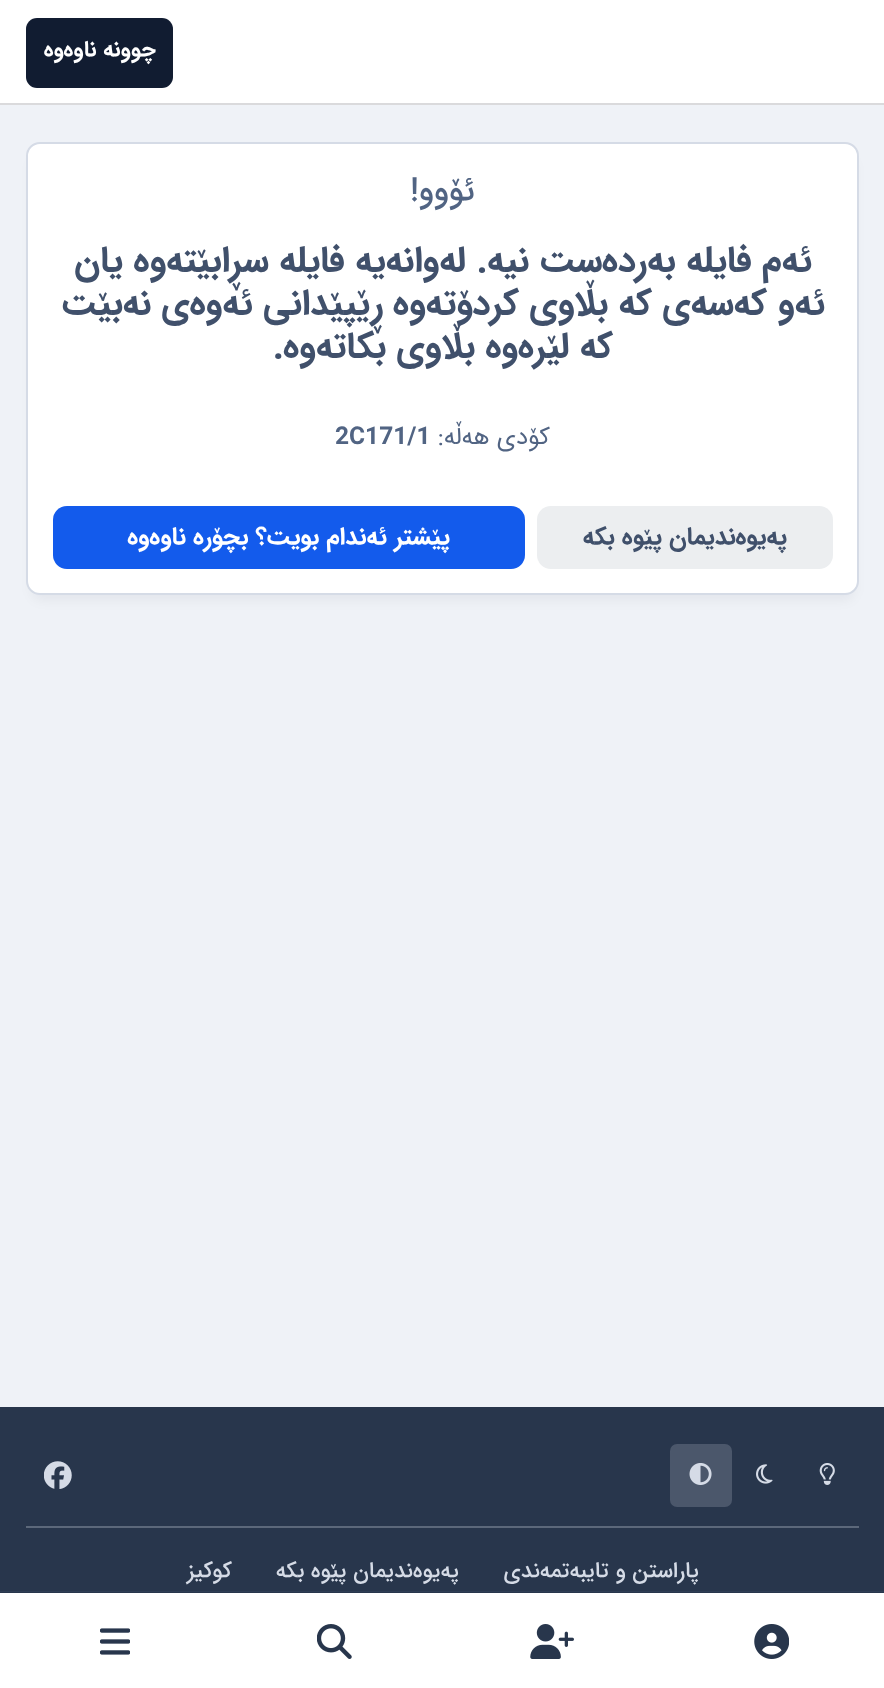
async function draw(canvas) {
	canvas.width = 884;
	canvas.height = 1688;
	const c = canvas.getContext('2d');
	c.miterLimit = 4;
	c.fontKerning = 'normal';
	async function loadImage(src) {
		const img = new Image();
		img.src = src;
		await img.decode();
		return img;
	}

	c.fillStyle = '#eff2f7';
	c.fillRect(0, 0, 884, 1688);
	c.fillStyle = '#fff';
	c.fillRect(0, 0, 884, 103);
	c.fillStyle = '#dadadc';
	c.fillRect(0, 103, 884, 2);
	c.fillStyle = '#111c31';
	c.beginPath();
	c.roundRect(26, 18, 147, 70, 11);
	c.fill();
	c.direction = 'rtl';
	c.font = 'bold 22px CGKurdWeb';
	c.fillStyle = '#fff';
	c.fillText('چوونە ناوەوە', 156, 56);
	c.fillStyle = '#01030a0d';
	c.filter = 'blur(6px)';
	c.beginPath();
	c.roundRect(32, 158, 822, 442, 9);
	c.fill();
	c.filter = 'none';
	c.fillStyle = '#fff';
	c.beginPath();
	c.roundRect(27, 143, 831, 451, 13);
	c.fill();
	c.strokeStyle = '#d5dbe6';
	c.lineWidth = 2;
	c.stroke();
	c.font = '500 32px CGKurdWeb';
	c.fillStyle = '#516483';
	c.fillText('ئۆوو!', 475, 200);
	c.font = 'bold 36.1px CGKurdWeb';
	c.fillStyle = '#40506b';
	for (const [text, x, y] of [
		['ئەم فایلە بەردەست نیە. لەوانەیە فایلە سڕابێتەوە یان', 812, 271],
		['ئەو کەسەی کە بڵاوی کردۆتەوە ڕێپێدانی ئەوەی نەبێت', 825, 314],
		['کە لێرەوە بڵاوی بکاتەوە.', 613, 357],
	]) {
		c.fillText(text, x, y);
	}
	c.font = '24.5px CGKurdWeb';
	c.fillStyle = '#516483';
	c.fillText('كۆدی هەڵە:', 550, 444);
	c.direction = 'ltr';
	c.font = 'bold 24.5px CGKurdWeb';
	c.fillText('2C171/1', 335, 444);
	c.fillStyle = '#eceef0';
	c.beginPath();
	c.roundRect(537, 506, 296, 63, 14);
	c.fill();
	c.direction = 'rtl';
	c.fillStyle = '#40506b';
	c.fillText('پەیوەندیمان پێوە بكە', 787, 544);
	c.fillStyle = '#135bec';
	c.beginPath();
	c.roundRect(53, 506, 472, 63, 14);
	c.fill();
	c.fillStyle = '#fff';
	c.fillText('پێشتر ئەندام بویت؟ بچۆرە ناوەوە', 450, 544);
	c.fillStyle = '#28364c';
	c.fillRect(0, 1407, 884, 186);
	c.drawImage(await loadImage('img1.png'), 819, 1463, 16, 22);
	c.drawImage(await loadImage('img2.png'), 756, 1464, 17, 20);
	c.fillStyle = '#4b576b';
	c.beginPath();
	c.roundRect(670, 1444, 62, 63, 7);
	c.fill();
	c.drawImage(await loadImage('img3.png'), 689, 1463, 23, 22);
	c.drawImage(await loadImage('img4.png'), 44, 1461, 28, 28);
	c.fillStyle = '#5c687a';
	c.fillRect(26, 1526, 833, 2);
	c.font = '500 22px CGKurdWeb';
	c.fillStyle = '#d5dbe6';
	for (const [text, x, y] of [
		['پاراستن و تایبەتمەندی', 699, 1577],
		['پەیوەندیمان پێوە بكە', 459, 1577],
		['کوکیز', 232, 1577],
	]) {
		c.fillText(text, x, y);
	}
	c.fillStyle = '#2e3d54';
	c.beginPath();
	c.moveTo(0, 1591);
	c.lineTo(0, 1592);
	c.lineTo(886, 1592);
	c.lineTo(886, 1687);
	c.lineTo(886, 1591);
	c.closePath();
	c.fill();
	c.fillStyle = '#fff';
	c.fillRect(0, 1593, 884, 95);
	c.drawImage(await loadImage('img5.png'), 754, 1624, 35, 35);
	c.drawImage(await loadImage('img6.png'), 530, 1624, 44, 35);
	c.drawImage(await loadImage('img7.png'), 317, 1624, 35, 35);
	c.drawImage(await loadImage('img8.png'), 100, 1628, 30, 27);
}

draw(document.querySelector('canvas'));
